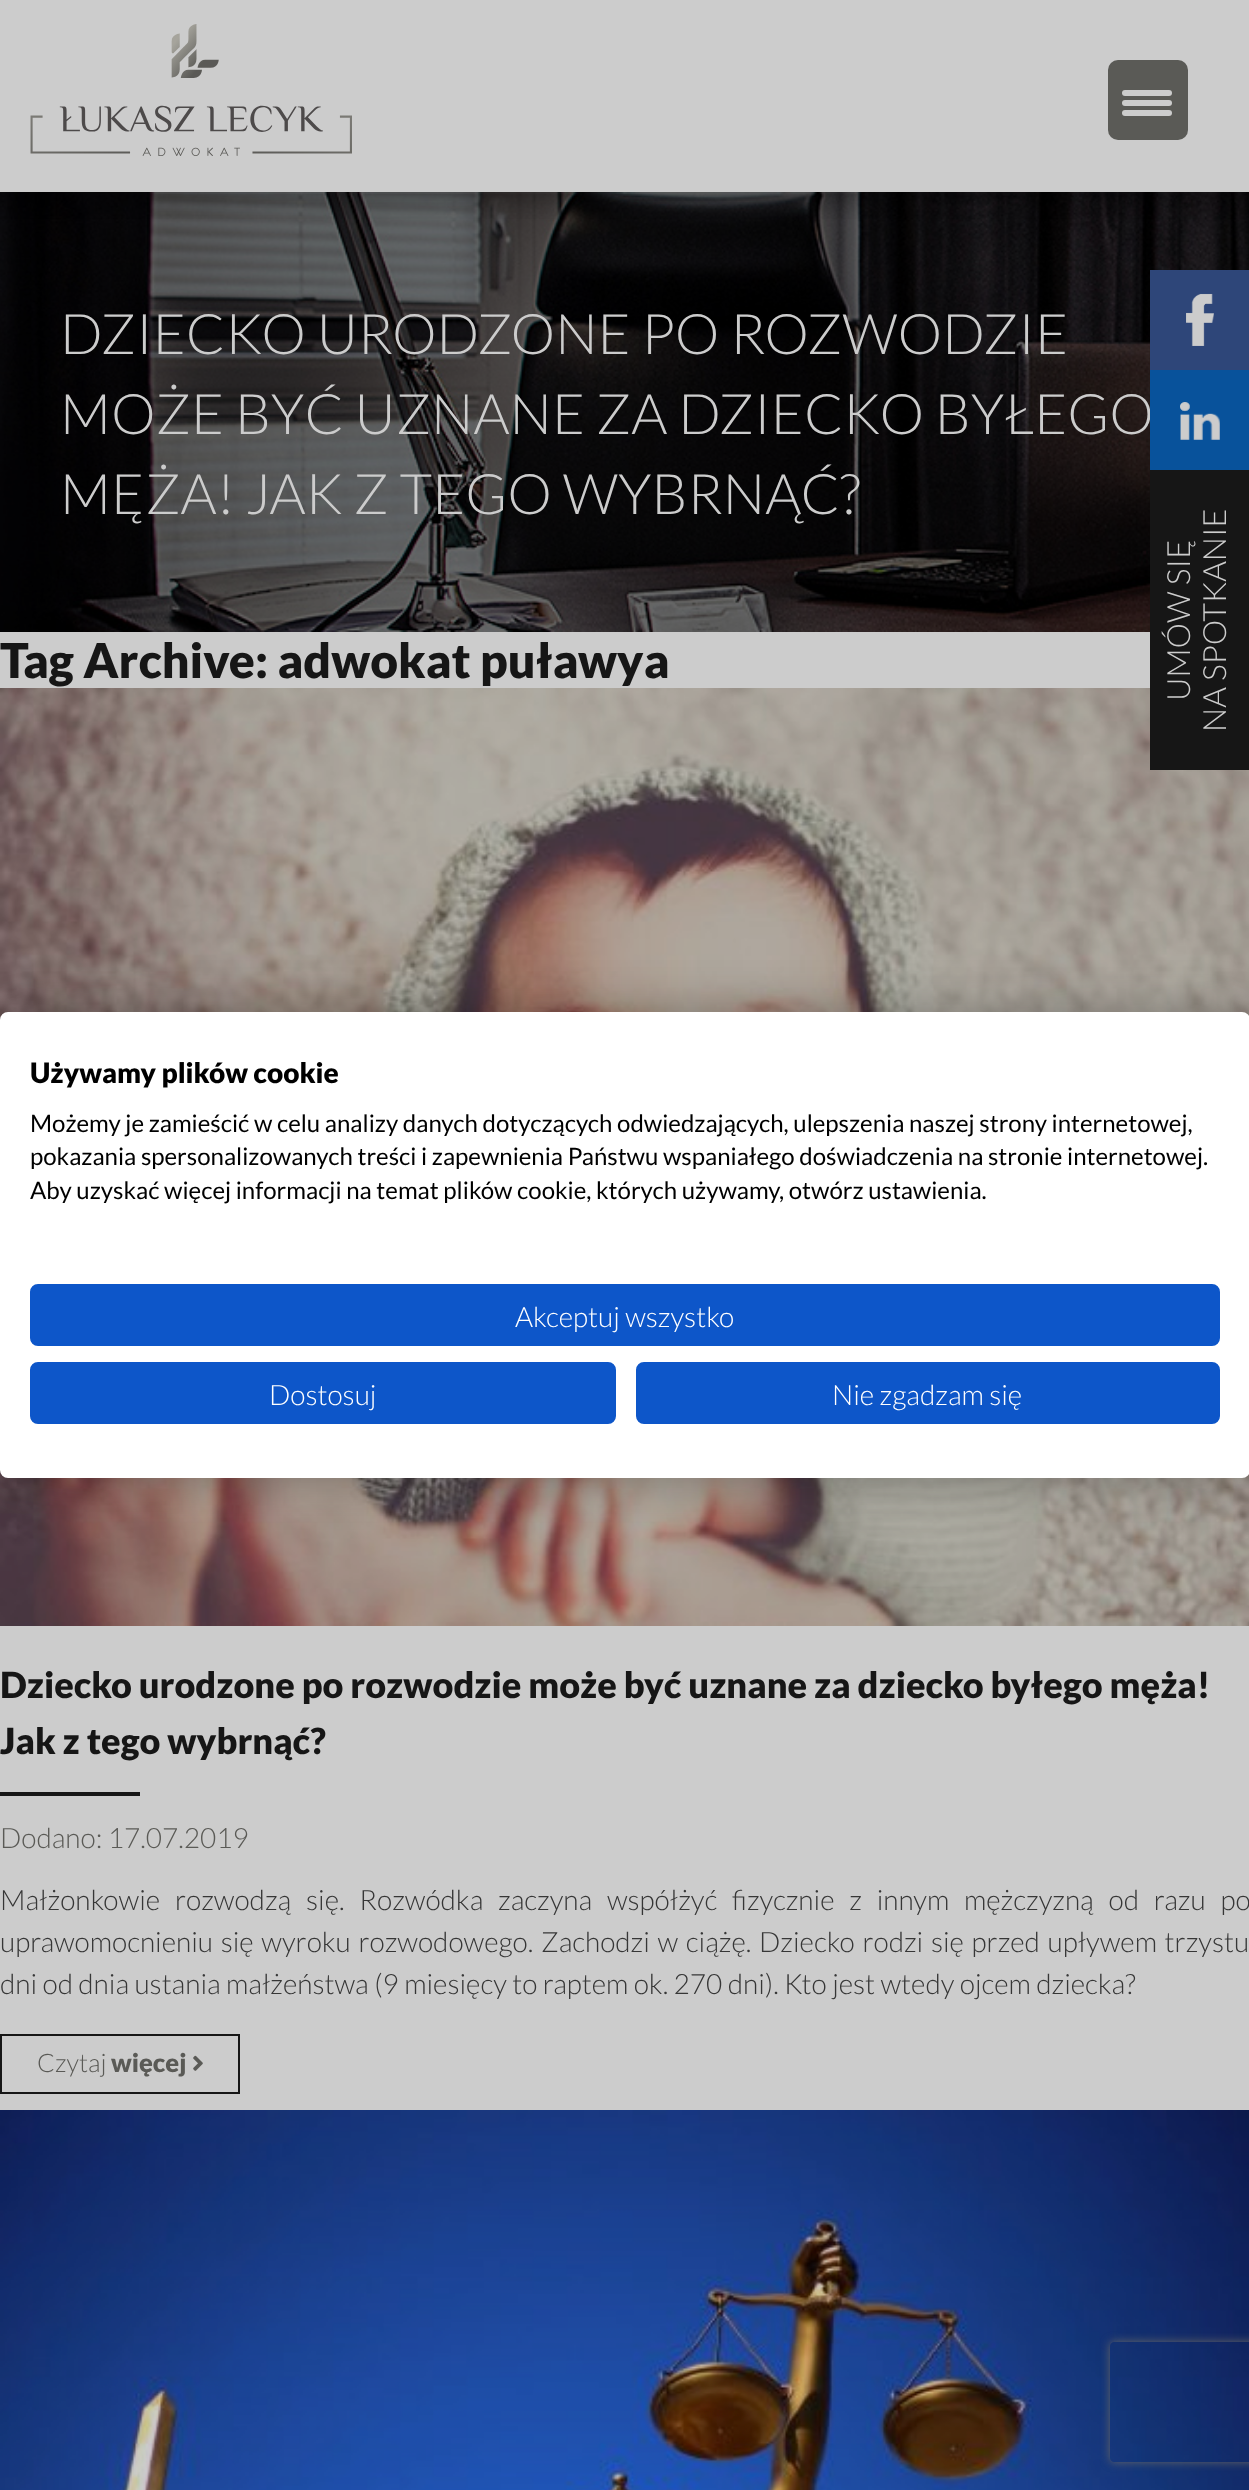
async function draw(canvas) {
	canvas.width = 1249;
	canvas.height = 2490;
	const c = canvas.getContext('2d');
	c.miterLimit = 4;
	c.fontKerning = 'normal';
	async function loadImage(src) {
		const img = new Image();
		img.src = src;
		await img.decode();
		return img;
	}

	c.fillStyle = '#ccc';
	c.fillRect(0, 0, 1249, 2490);
	c.drawImage(await loadImage('img2.png'), 0, 192, 1249, 440);
	c.save();
	c.beginPath();
	c.rect(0, 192, 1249, 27);
	c.clip();
	c.fillStyle = '#00000036';
	c.filter = 'blur(16px)';
	c.beginPath();
	c.rect(0, 6, 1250, 192);
	c.fill();
	c.filter = 'none';
	c.restore();
	c.drawImage(await loadImage('img1.png'), 30, 24, 322, 132);
	c.fillStyle = '#5a5a56';
	c.beginPath();
	c.roundRect(1108, 60, 80, 80, 10);
	c.fill();
	c.fillStyle = '#ccc';
	c.beginPath();
	c.roundRect(1122, 100, 50, 6, 3);
	c.fill();
	c.beginPath();
	c.roundRect(1122, 90, 50, 6, 3);
	c.fill();
	c.beginPath();
	c.roundRect(1122, 110, 50, 6, 3);
	c.fill();
	c.font = '300 56px Lato';
	for (const [text, x, y] of [
		['DZIECKO URODZONE PO ROZWODZIE', 60, 354],
		['MOŻE BYĆ UZNANE ZA DZIECKO BYŁEGO', 60, 434],
		['MĘŻA! JAK Z TEGO WYBRNĄĆ?', 60, 514],
	]) {
		c.fillText(text, x, y);
	}
	c.fillStyle = '#2e4679';
	c.fillRect(1150, 270, 99, 100);
	c.drawImage(await loadImage('img3.png'), 1186, 293, 28, 53);
	c.fillStyle = '#08529b';
	c.fillRect(1150, 370, 99, 100);
	c.drawImage(await loadImage('img4.png'), 1180, 402, 40, 38);
	c.drawImage(await loadImage('img5.png'), 0, 688, 1249, 938);
	c.fillStyle = '#161616';
	c.fillRect(1150, 470, 99, 300);
	c.font = '300 32px Lato';
	c.fillStyle = '#ccc';
	c.save();
	c.translate(1190, 701);
	c.rotate(-90 * Math.PI / 180);
	c.fillText('UMÓW SIĘ', 0, 0);
	c.restore();
	c.save();
	c.translate(1226, 732);
	c.rotate(-90 * Math.PI / 180);
	c.fillText('NA SPOTKANIE', 0, 0);
	c.restore();
	c.font = '900 48px Lato';
	c.fillStyle = '#161616';
	c.fillText('Tag Archive: adwokat puławya', 0, 678);
	c.font = '900 36px Lato';
	c.fillText('Dziecko urodzone po rozwodzie może być uznane za dziecko byłego męża!', 0, 1698);
	c.fillText('Jak z tego wybrnąć?', 0, 1754);
	c.fillRect(0, 1792, 140, 4);
	c.font = '300 28px Lato';
	c.fillStyle = '#5a5a56';
	c.fillText('Dodano: 17.07.2019', 0, 1848);
	c.wordSpacing = '9.4px';
	c.fillStyle = '#363636';
	c.fillText('Małżonkowie rozwodzą się. Rozwódka zaczyna współżyć fizycznie z innym mężczyzną od razu po', 0, 1910);
	c.wordSpacing = '2.25px';
	c.fillText('uprawomocnieniu się wyroku rozwodowego. Zachodzi w ciążę. Dziecko rodzi się przed upływem trzystu', 0, 1952);
	c.wordSpacing = '0px';
	c.fillText('dni od dnia ustania małżeństwa (9 miesięcy to raptem ok. 270 dni). Kto jest wtedy ojcem dziecka?', 0, 1994);
	c.strokeStyle = '#161616';
	c.lineWidth = 2;
	c.strokeRect(1, 2035, 238, 58);
	c.font = '300 25.5px Lato';
	c.fillStyle = '#5a5a56';
	c.fillText('Czytaj', 37, 2072);
	c.font = '900 25.5px Lato';
	c.fillText('więcej', 111, 2072);
	c.drawImage(await loadImage('img6.png'), 193, 2055, 10, 16);
	c.drawImage(await loadImage('img7.png'), 0, 2110, 1249, 380);
	c.fillStyle = '#0000004d';
	c.filter = 'blur(24px)';
	c.beginPath();
	c.roundRect(0, 1012, 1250, 466, 8);
	c.fill();
	c.filter = 'none';
	c.fillStyle = '#fff';
	c.beginPath();
	c.roundRect(0, 1012, 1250, 466, 8);
	c.fill();
	c.font = '900 28px Lato';
	c.fillStyle = '#000';
	c.fillText('Używamy plików cookie', 30, 1083);
	c.font = '24px Lato';
	for (const [text, x, y] of [
		['Możemy je zamieścić w celu analizy danych dotyczących odwiedzających, ulepszenia naszej strony internetowej,', 30, 1132],
		['pokazania spersonalizowanych treści i zapewnienia Państwu wspaniałego doświadczenia na stronie internetowej.', 30, 1165],
		['Aby uzyskać więcej informacji na temat plików cookie, których używamy, otwórz ustawienia.', 30, 1199],
	]) {
		c.fillText(text, x, y);
	}
	c.fillStyle = '#0d56c9';
	c.beginPath();
	c.roundRect(31, 1285, 1188, 60, 7);
	c.fill();
	c.strokeStyle = '#0d56c9';
	c.stroke();
	c.font = '300 28px Lato';
	c.fillStyle = '#fff';
	c.fillText('Akceptuj wszystko', 515, 1327);
	c.fillStyle = '#0d56c9';
	c.beginPath();
	c.roundRect(31, 1363, 584, 60, 7);
	c.fill();
	c.stroke();
	c.fillStyle = '#fff';
	c.fillText('Dostosuj', 269, 1405);
	c.fillStyle = '#0d56c9';
	c.beginPath();
	c.roundRect(637, 1363, 582, 60, 7);
	c.fill();
	c.stroke();
	c.fillStyle = '#fff';
	c.fillText('Nie zgadzam się', 832, 1405);
	c.save();
	c.beginPath();
	c.moveTo(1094, 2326);
	c.lineTo(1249, 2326);
	c.lineTo(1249, 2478);
	c.lineTo(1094, 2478);
	c.closePath();
	c.moveTo(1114, 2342);
	c.lineTo(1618, 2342);
	c.bezierCurveTo(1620, 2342, 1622, 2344, 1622, 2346);
	c.lineTo(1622, 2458);
	c.bezierCurveTo(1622, 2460, 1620, 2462, 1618, 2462);
	c.lineTo(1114, 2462);
	c.bezierCurveTo(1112, 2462, 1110, 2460, 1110, 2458);
	c.lineTo(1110, 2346);
	c.bezierCurveTo(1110, 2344, 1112, 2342, 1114, 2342);
	c.closePath();
	c.clip('evenodd');
	c.fillStyle = '#666';
	c.filter = 'blur(5px)';
	c.beginPath();
	c.roundRect(1110, 2342, 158, 120, 4);
	c.fill();
	c.filter = 'none';
	c.restore();
}

draw(document.querySelector('canvas'));
